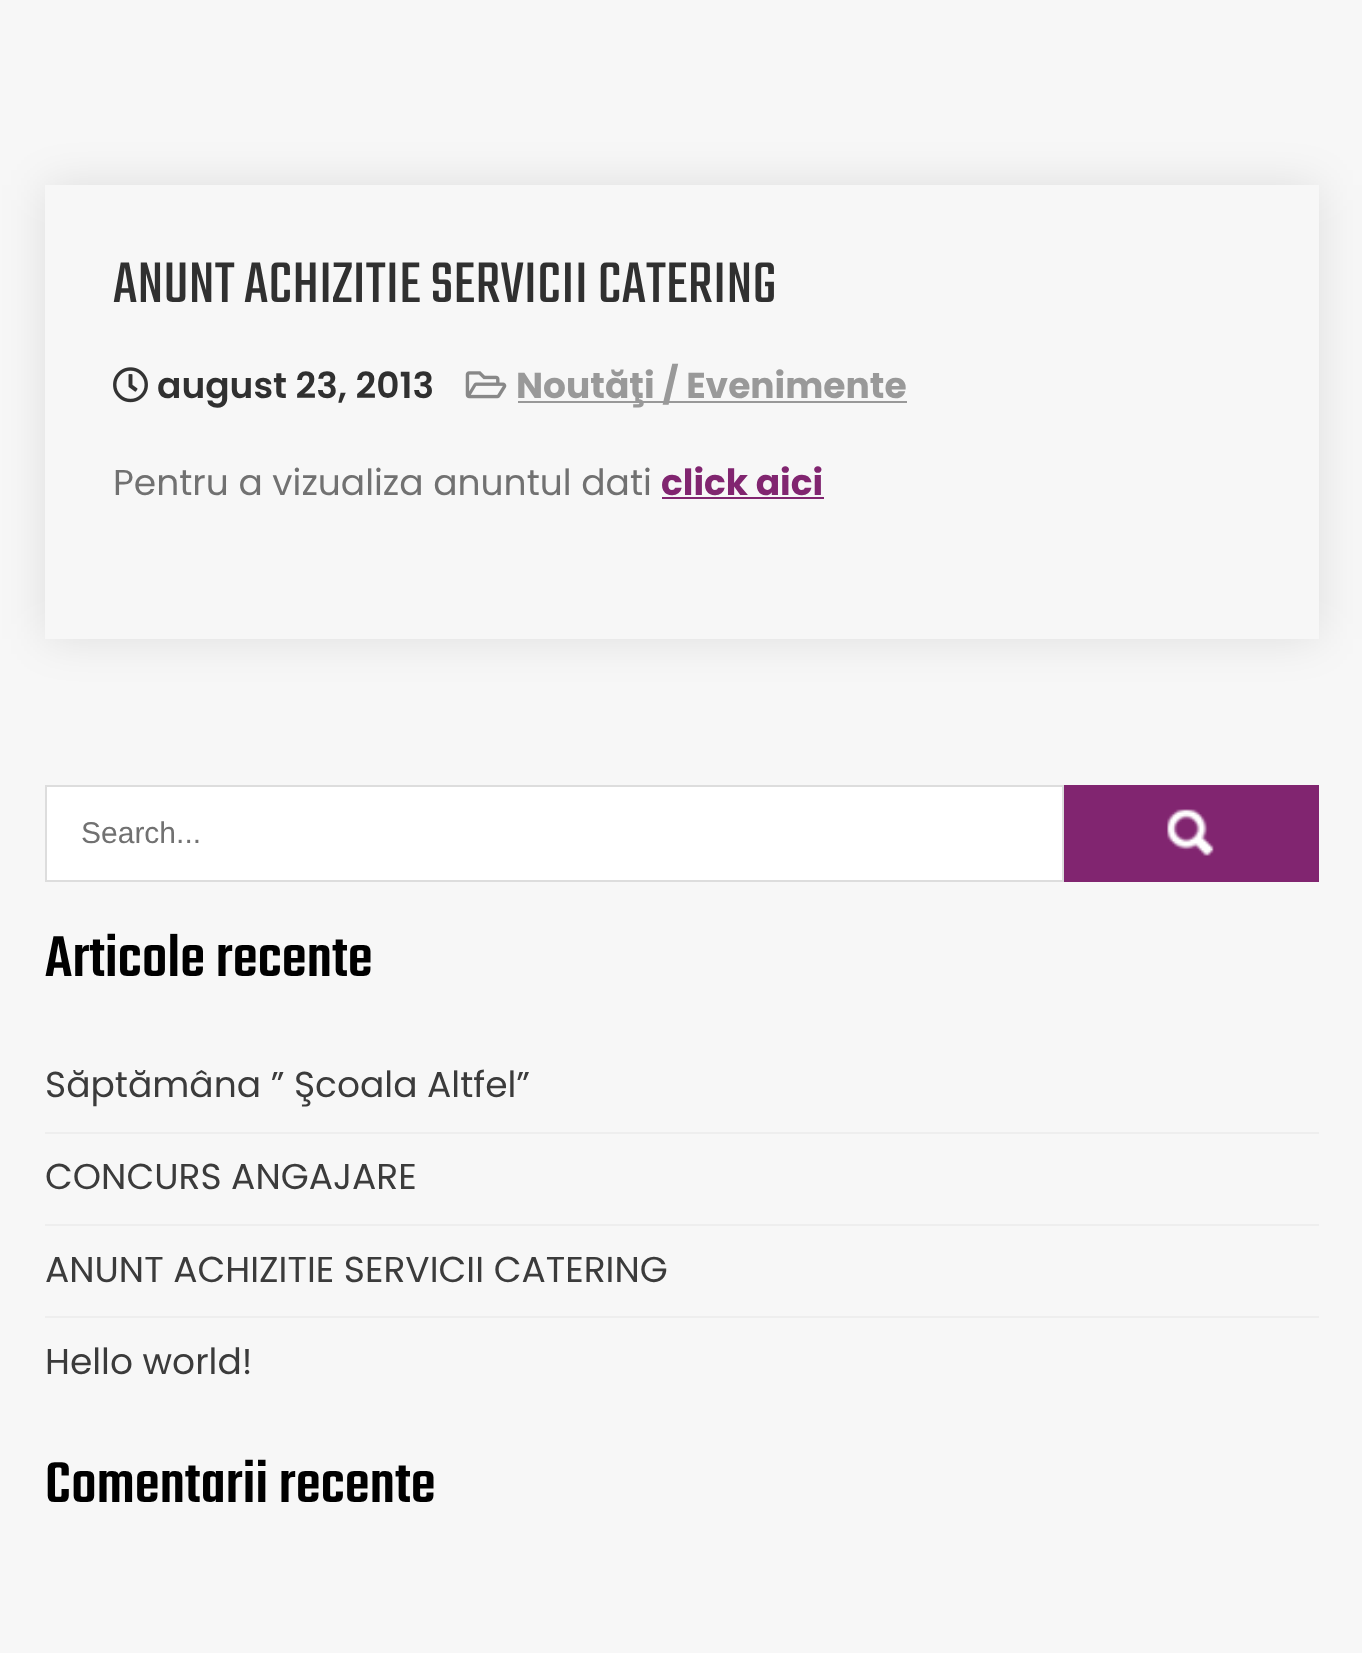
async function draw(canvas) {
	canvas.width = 1362;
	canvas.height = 1653;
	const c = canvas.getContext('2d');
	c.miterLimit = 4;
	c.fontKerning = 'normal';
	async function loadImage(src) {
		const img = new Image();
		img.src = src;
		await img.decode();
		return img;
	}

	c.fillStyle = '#f7f7f7';
	c.fillRect(0, 0, 1362, 1653);
	c.save();
	c.beginPath();
	c.moveTo(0, 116);
	c.lineTo(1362, 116);
	c.lineTo(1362, 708);
	c.lineTo(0, 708);
	c.closePath();
	c.moveTo(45, 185);
	c.lineTo(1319, 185);
	c.lineTo(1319, 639);
	c.lineTo(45, 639);
	c.closePath();
	c.clip('evenodd');
	c.fillStyle = '#0000001a';
	c.filter = 'blur(22.5px)';
	c.beginPath();
	c.rect(45, 185, 1274, 454);
	c.fill();
	c.filter = 'none';
	c.restore();
	c.letterSpacing = '0.25px';
	c.font = '63px Teko';
	c.fillStyle = '#303030';
	c.fillText('ANUNT ACHIZITIE SERVICII CATERING', 113, 302);
	c.drawImage(await loadImage('img1.png'), 113, 367, 35, 36);
	c.letterSpacing = '0px';
	c.font = '600 36px Poppins';
	c.fillText('august 23, 2013', 157, 398);
	c.drawImage(await loadImage('img2.png'), 465, 371, 42, 28);
	c.fillStyle = '#999';
	c.fillRect(518, 401, 389, 2);
	c.font = 'bold 36px Poppins';
	c.fillText('Noutăţi / Evenimente', 516, 398);
	c.font = '36px Poppins';
	c.fillStyle = '#717171';
	c.fillText('Pentru a vizualiza anuntul dati', 113, 495);
	c.font = 'bold 36px Poppins';
	c.fillStyle = '#812570';
	c.fillText('click aici', 661, 495);
	c.fillRect(662, 497, 162, 2);
	c.fillStyle = '#fff';
	c.beginPath();
	c.rect(46, 786, 1017, 95);
	c.fill();
	c.strokeStyle = '#ddd';
	c.lineWidth = 2;
	c.stroke();
	c.font = '30px Liberation Sans';
	c.fillStyle = '#717171';
	c.fillText('Search...', 81, 843);
	c.fillStyle = '#812570';
	c.fillRect(1064, 785, 255, 97);
	c.drawImage(await loadImage('img3.png'), 1167, 809, 47, 47);
	c.letterSpacing = '0.25px';
	c.font = '500 63px Teko';
	c.fillStyle = '#000';
	c.fillText('Articole recente', 45, 976);
	c.fillStyle = '#eee';
	c.fillRect(45, 1132, 1274, 2);
	c.letterSpacing = '0px';
	c.font = '36px Poppins';
	c.fillStyle = '#3b3b3b';
	c.fillText('Săptămâna ” Şcoala Altfel”', 45, 1097);
	c.fillStyle = '#eee';
	c.fillRect(45, 1224, 1274, 2);
	c.fillStyle = '#3b3b3b';
	c.fillText('CONCURS ANGAJARE', 45, 1189);
	c.fillStyle = '#eee';
	c.fillRect(45, 1316, 1274, 2);
	c.fillStyle = '#3b3b3b';
	c.fillText('ANUNT ACHIZITIE SERVICII CATERING', 45, 1282);
	c.fillText('Hello world!', 45, 1374);
	c.letterSpacing = '0.25px';
	c.font = '500 63px Teko';
	c.fillStyle = '#000';
	c.fillText('Comentarii recente', 45, 1502);
}

draw(document.querySelector('canvas'));
